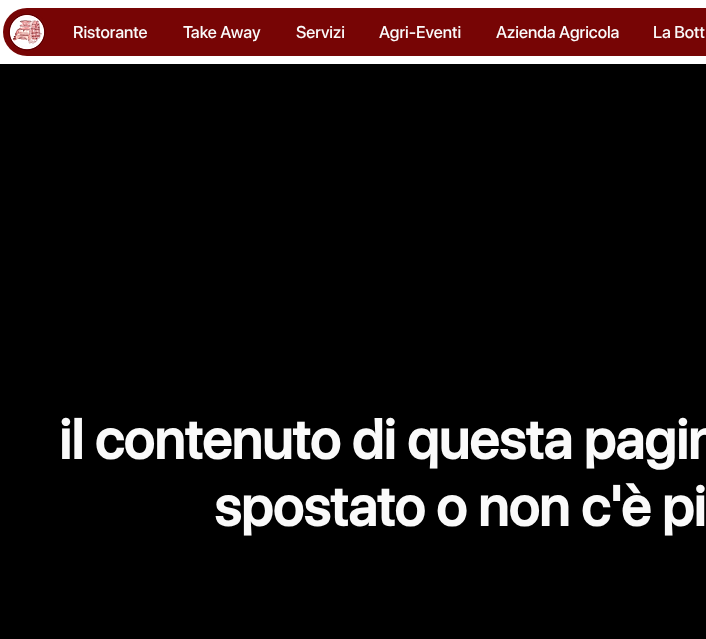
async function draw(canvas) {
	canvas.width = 706;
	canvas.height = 639;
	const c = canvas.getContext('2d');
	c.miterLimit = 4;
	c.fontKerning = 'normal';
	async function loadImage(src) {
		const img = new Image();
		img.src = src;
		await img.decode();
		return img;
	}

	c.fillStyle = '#fff';
	c.fillRect(0, 0, 706, 639);
	c.fillStyle = '#770505';
	c.beginPath();
	c.roundRect(3, 8, 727, 48, 24);
	c.fill();
	c.drawImage(await loadImage('img1.png'), 8, 14, 38, 37);
	c.font = '500 17px SF Pro Display';
	c.fillStyle = '#fafafa';
	for (const [text, x, y] of [
		['Ristorante', 73, 38],
		['Take Away', 183, 38],
		['Servizi', 296, 38],
		['Agri-Eventi', 379, 38],
		['Azienda Agricola', 496, 38],
		['La Bott', 653, 38],
	]) {
		c.fillText(text, x, y);
	}
	c.fillStyle = '#000';
	c.fillRect(0, 64, 706, 575);
	c.font = 'bold 56px SF Pro Display';
	c.fillStyle = '#fafafa';
	c.fillText('il contenuto di questa pagin', 59, 459);
	c.fillText('spostato o non c\'è pi', 214, 526);
}

draw(document.querySelector('canvas'));
